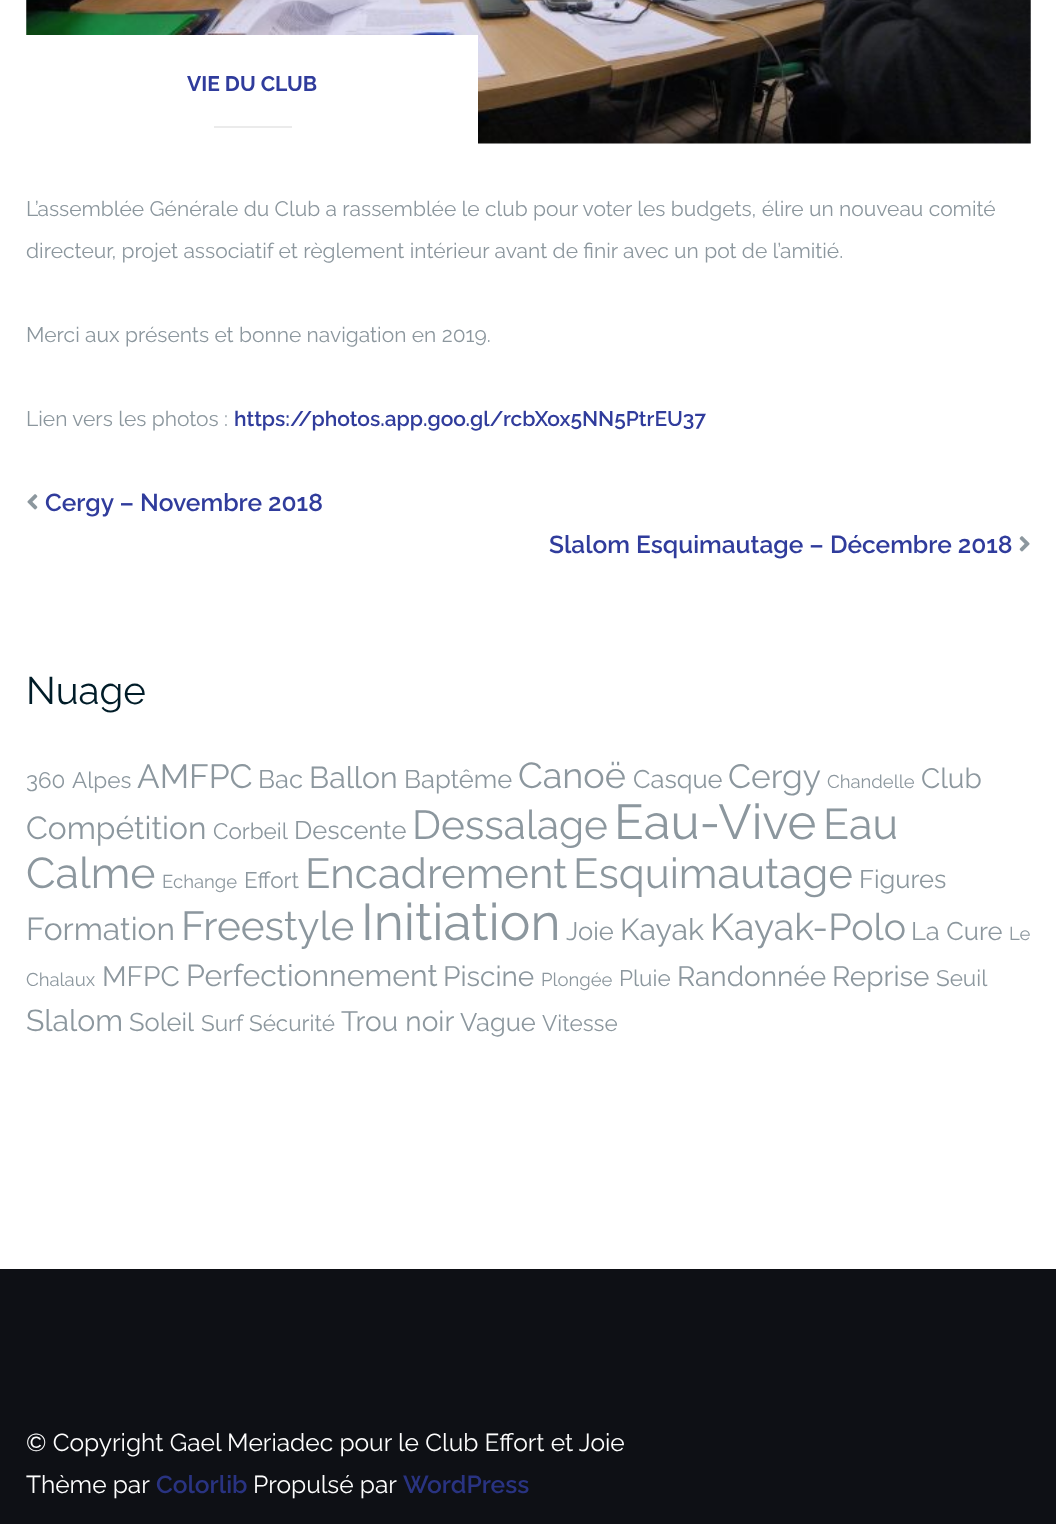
async function draw(canvas) {
	canvas.width = 1056;
	canvas.height = 1524;
	const c = canvas.getContext('2d');
	c.miterLimit = 4;
	c.fontKerning = 'normal';
	async function loadImage(src) {
		const img = new Image();
		img.src = src;
		await img.decode();
		return img;
	}

	c.fillStyle = '#fff';
	c.fillRect(0, 0, 1056, 1524);
	c.drawImage(await loadImage('img1.png'), 26, 0, 1005, 144);
	c.fillRect(26, 35, 452, 109);
	c.font = 'bold 21px Raleway';
	c.fillStyle = '#303c9c';
	c.fillText('VIE DU CLUB', 187, 91);
	c.fillStyle = '#ebebeb';
	c.fillRect(214, 126, 78, 2);
	c.font = '21px Raleway';
	c.fillStyle = '#8c979e';
	for (const [text, x, y] of [
		['L’assemblée Générale du Club a rassemblée le club pour voter les budgets, élire un nouveau comité', 26, 216],
		['directeur, projet associatif et règlement intérieur avant de finir avec un pot de l’amitié.', 26, 258],
		['Merci aux présents et bonne navigation en 2019.', 26, 342],
		['Lien vers les photos :', 26, 426],
	]) {
		c.fillText(text, x, y);
	}
	c.font = '600 21px Raleway';
	c.fillStyle = '#303c9c';
	c.fillText('https://photos.app.goo.gl/rcbXox5NN5PtrEU37', 234, 426);
	c.drawImage(await loadImage('img2.png'), 27, 494, 11, 16);
	c.font = '600 24.5px Raleway';
	c.fillText('Cergy – Novembre 2018', 45, 511);
	c.fillText('Slalom Esquimautage – Décembre 2018', 549, 553);
	c.drawImage(await loadImage('img3.png'), 1019, 536, 11, 16);
	c.font = '38.5px Raleway';
	c.fillStyle = '#001c28';
	c.fillText('Nuage', 26, 704);
	c.font = '22.5px Raleway';
	c.fillStyle = '#8c979e';
	c.fillText('360', 26, 788);
	c.fillText('Alpes', 72, 788);
	c.font = '33.5px Raleway';
	c.fillText('AMFPC', 137, 788);
	c.font = '25.5px Raleway';
	c.fillText('Bac', 258, 788);
	c.font = '30.25px Raleway';
	c.fillText('Ballon', 309, 788);
	c.font = '25.5px Raleway';
	c.fillText('Baptême', 404, 788);
	c.font = '36px Raleway';
	c.fillText('Canoë', 518, 788);
	c.font = '25.5px Raleway';
	c.fillText('Casque', 633, 788);
	c.font = '33.5px Raleway';
	c.fillText('Cergy', 728, 788);
	c.font = '18.5px Raleway';
	c.fillText('Chandelle', 827, 788);
	c.font = '28px Raleway';
	c.fillText('Club', 921, 788);
	c.font = '31.75px Raleway';
	c.fillText('Compétition', 26, 839);
	c.font = '22.5px Raleway';
	c.fillText('Corbeil', 213, 839);
	c.font = '25.5px Raleway';
	c.fillText('Descente', 294, 839);
	c.font = '40.5px Raleway';
	c.fillText('Dessalage', 412, 839);
	c.font = '49px Raleway';
	c.fillText('Eau-Vive', 614, 839);
	c.font = '43px Raleway';
	c.fillText('Eau', 823, 839);
	c.fillText('Calme', 26, 888);
	c.font = '18.5px Raleway';
	c.fillText('Echange', 162, 888);
	c.font = '22.5px Raleway';
	c.fillText('Effort', 244, 888);
	c.font = '42px Raleway';
	c.fillText('Encadrement', 305, 888);
	c.fillText('Esquimautage', 573, 888);
	c.font = '25.5px Raleway';
	c.fillText('Figures', 859, 888);
	c.font = '31.75px Raleway';
	c.fillText('Formation', 26, 940);
	c.font = '40.5px Raleway';
	c.fillText('Freestyle', 181, 940);
	c.font = '51.5px Raleway';
	c.fillText('Initiation', 361, 940);
	c.font = '25.5px Raleway';
	c.fillText('Joie', 566, 940);
	c.font = '30.25px Raleway';
	c.fillText('Kayak', 620, 940);
	c.font = '37.5px Raleway';
	c.fillText('Kayak-Polo', 710, 940);
	c.font = '25.5px Raleway';
	c.fillText('La Cure', 911, 940);
	c.font = '18.5px Raleway';
	c.fillText('Le', 1009, 940);
	c.fillText('Chalaux', 26, 986);
	c.font = '28px Raleway';
	c.fillText('MFPC', 102, 986);
	c.font = '30.25px Raleway';
	c.fillText('Perfectionnement', 186, 986);
	c.font = '28px Raleway';
	c.fillText('Piscine', 443, 986);
	c.font = '18.5px Raleway';
	c.fillText('Plongée', 541, 986);
	c.font = '22.5px Raleway';
	c.fillText('Pluie', 619, 986);
	c.font = '28px Raleway';
	c.fillText('Randonnée', 677, 986);
	c.fillText('Reprise', 832, 986);
	c.font = '22.5px Raleway';
	c.fillText('Seuil', 936, 986);
	c.font = '30.25px Raleway';
	c.fillText('Slalom', 26, 1031);
	c.font = '25.5px Raleway';
	c.fillText('Soleil', 129, 1031);
	c.font = '22.5px Raleway';
	c.fillText('Surf', 201, 1031);
	c.fillText('Sécurité', 249, 1031);
	c.font = '28px Raleway';
	c.fillText('Trou noir', 341, 1031);
	c.font = '25.5px Raleway';
	c.fillText('Vague', 460, 1031);
	c.font = '22.5px Raleway';
	c.fillText('Vitesse', 542, 1031);
	c.fillStyle = '#0e1015';
	c.fillRect(0, 1269, 1056, 255);
	c.font = '24.5px Raleway';
	c.fillStyle = '#fefefe';
	c.fillText('© Copyright Gael Meriadec pour le Club Effort et Joie', 26, 1451);
	c.fillText('Thème par', 26, 1493);
	c.font = '600 24.5px Raleway';
	c.fillStyle = '#293381';
	c.fillText('Colorlib', 156, 1493);
	c.font = '24.5px Raleway';
	c.fillStyle = '#fefefe';
	c.fillText('Propulsé par', 253, 1493);
	c.font = '600 24.5px Raleway';
	c.fillStyle = '#293381';
	c.fillText('WordPress', 403, 1493);
}

draw(document.querySelector('canvas'));
